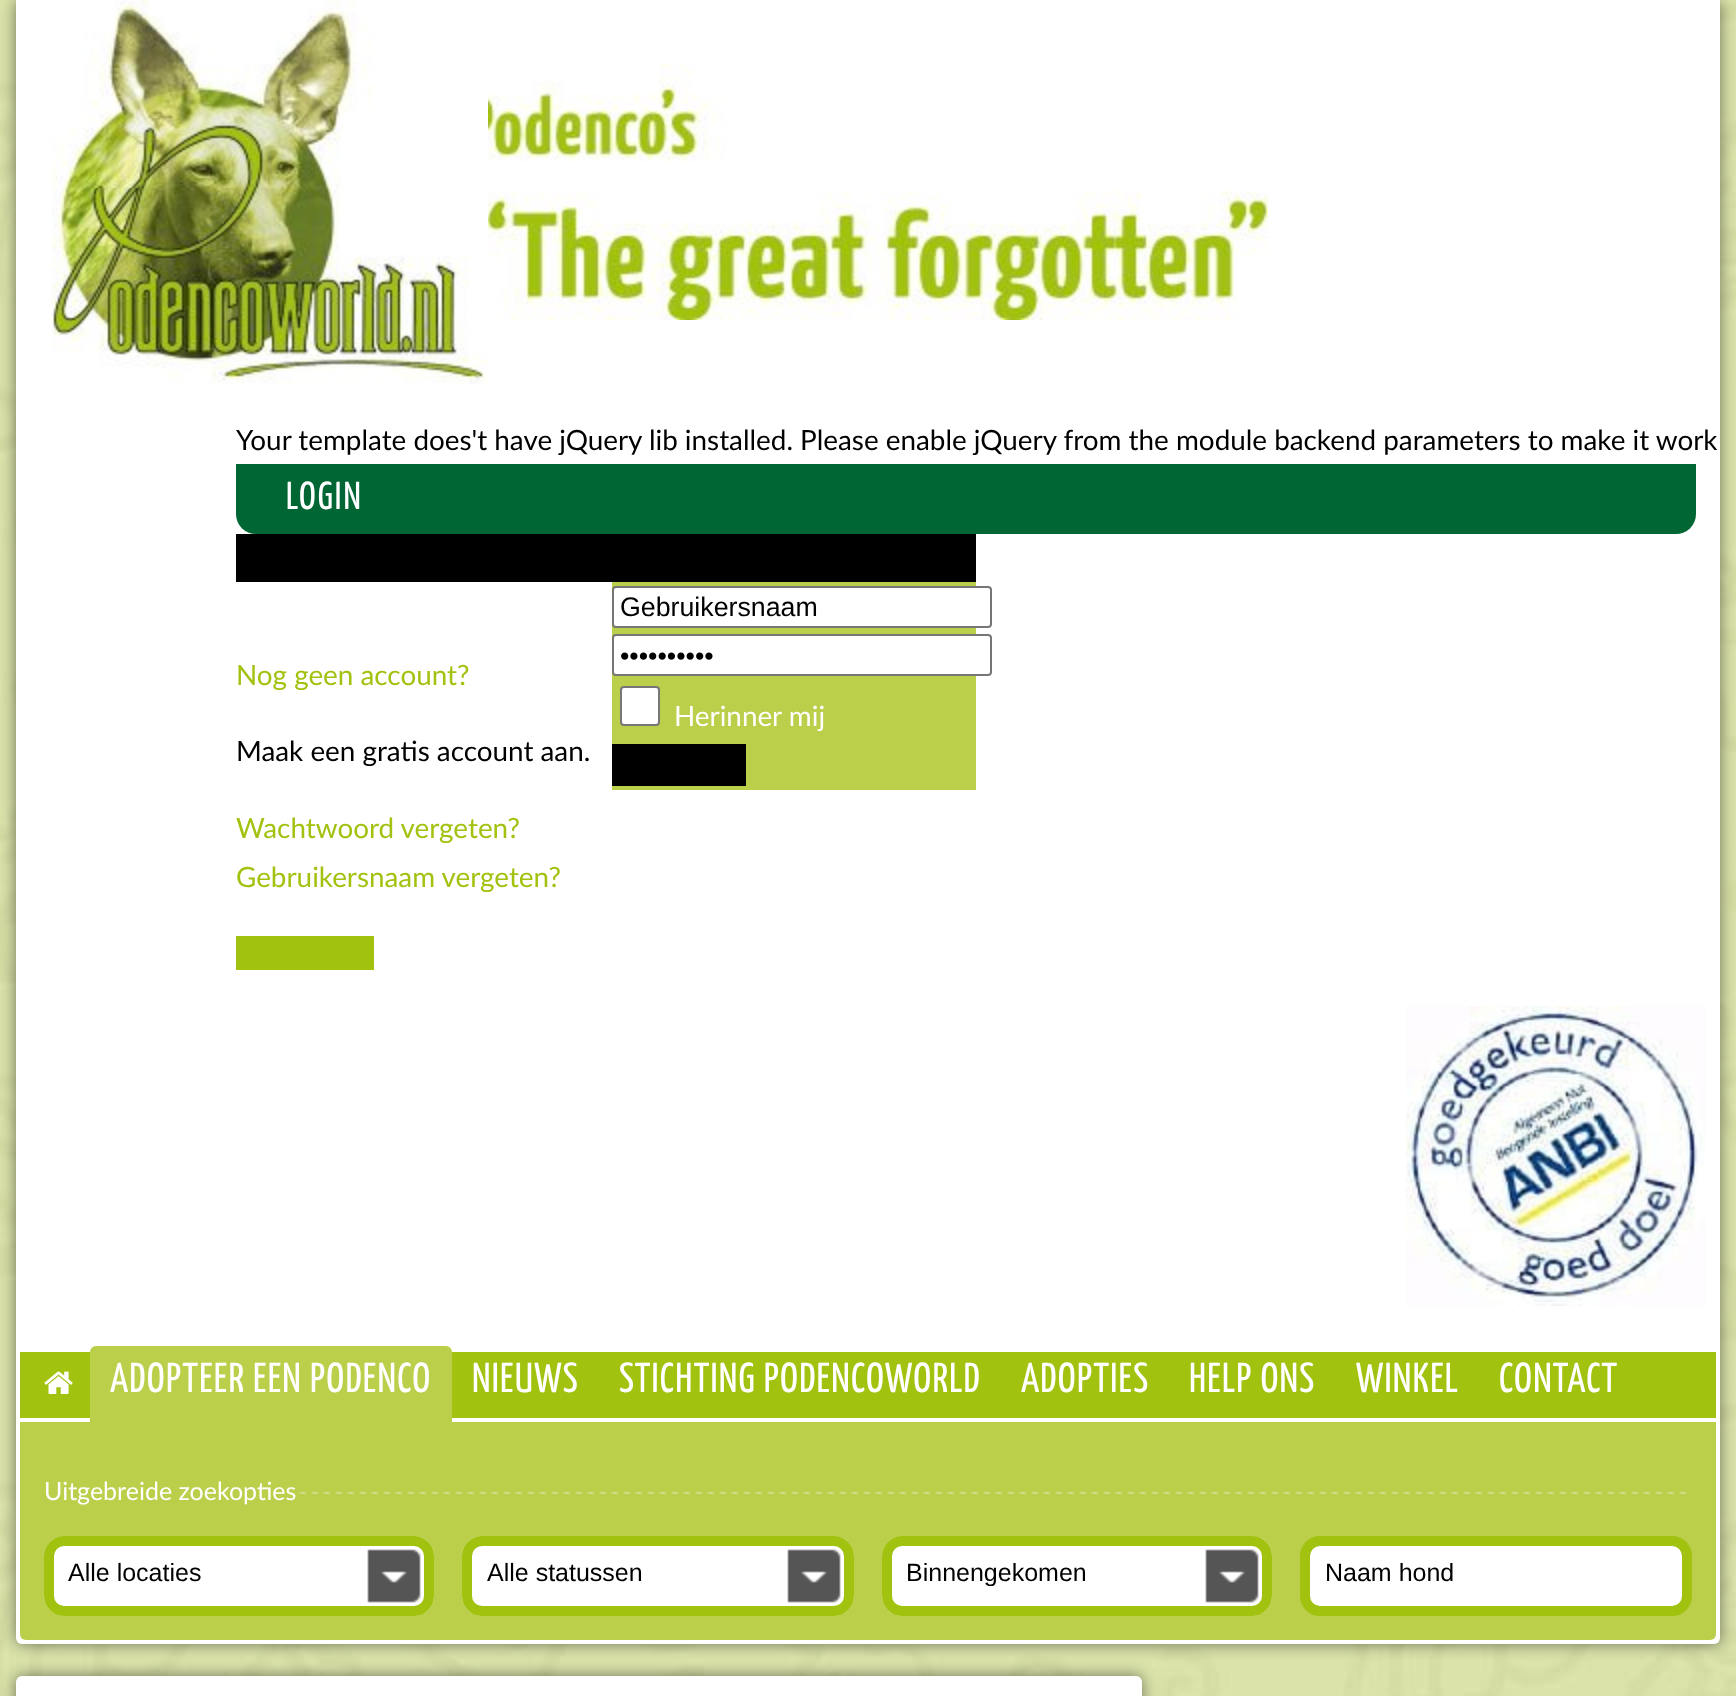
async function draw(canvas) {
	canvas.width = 1736;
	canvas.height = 1696;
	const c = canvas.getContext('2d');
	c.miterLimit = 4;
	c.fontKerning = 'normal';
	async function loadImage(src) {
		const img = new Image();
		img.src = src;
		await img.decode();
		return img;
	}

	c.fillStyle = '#fff';
	c.fillRect(0, 0, 1736, 1696);
	c.drawImage(await loadImage('img1.png'), 0, 0, 1736, 1696);
	c.fillStyle = '#00000080';
	c.filter = 'blur(8px)';
	c.beginPath();
	c.roundRect(16, 0, 1704, 1644, 6);
	c.fill();
	c.filter = 'none';
	c.fillStyle = '#fff';
	c.beginPath();
	c.roundRect(16, 0, 1704, 1644, [0, 0, 6, 6]);
	c.fill();
	c.drawImage(await loadImage('img2.png'), 488, 63, 780, 257);
	c.drawImage(await loadImage('img3.png'), 51, 0, 437, 384);
	c.font = '27.85px Lato';
	c.fillStyle = '#000';
	c.fillText('Your template does\'t have jQuery lib installed. Please enable jQuery from the module backend parameters to make it work', 236, 450);
	c.fillStyle = '#063';
	c.beginPath();
	c.roundRect(236, 464, 1460, 70, [0, 0, 20, 20]);
	c.fill();
	c.letterSpacing = '2px';
	c.font = '39px Yanone Kaffeesatz';
	c.fillStyle = '#fff';
	c.fillText('LOGIN', 286, 509);
	c.fillStyle = '#000';
	c.fillRect(236, 534, 740, 48);
	c.letterSpacing = '0px';
	c.font = '27.85px Lato';
	c.fillStyle = '#a2c210';
	c.fillText('Nog geen account?', 236, 685);
	c.fillStyle = '#000';
	c.fillText('Maak een gratis account aan.', 236, 761);
	c.fillStyle = '#a2c210';
	c.fillText('Wachtwoord vergeten?', 236, 838);
	c.fillText('Gebruikersnaam vergeten?', 236, 887);
	c.fillRect(236, 936, 138, 34);
	c.fillStyle = '#bccf4a';
	c.fillRect(612, 582, 364, 208);
	c.fillStyle = '#fff';
	c.beginPath();
	c.roundRect(613, 587, 378, 40, 3);
	c.fill();
	c.strokeStyle = '#767676';
	c.lineWidth = 2;
	c.stroke();
	c.font = '26.75px Liberation Sans';
	c.fillStyle = '#000';
	c.fillText('Gebruikersnaam', 620, 616);
	c.fillStyle = '#fff';
	c.beginPath();
	c.roundRect(613, 635, 378, 40, 3);
	c.fill();
	c.stroke();
	c.fillStyle = '#000';
	c.fillText('••••••••••', 620, 665);
	c.fillStyle = '#fff';
	c.beginPath();
	c.roundRect(621, 687, 38, 38, 3);
	c.fill();
	c.stroke();
	c.font = '27.85px Lato';
	c.fillText('Herinner mij', 674, 726);
	c.fillStyle = '#000';
	c.fillRect(612, 744, 134, 42);
	c.drawImage(await loadImage('img4.png'), 1406, 1006, 300, 300);
	c.fillStyle = '#a2c210';
	c.fillRect(20, 1352, 1696, 66);
	c.drawImage(await loadImage('img5.png'), 44, 1371, 29, 23);
	c.fillStyle = '#bccf4a';
	c.beginPath();
	c.roundRect(90, 1346, 362, 80, [6, 6, 0, 0]);
	c.fill();
	c.letterSpacing = '1.25px';
	c.font = '41.75px Yanone Kaffeesatz';
	c.fillStyle = '#fff';
	for (const [text, x, y] of [
		['ADOPTEER EEN PODENCO', 110, 1392],
		['NIEUWS', 472, 1392],
		['STICHTING PODENCOWORLD', 619, 1392],
		['ADOPTIES', 1021, 1392],
		['HELP ONS', 1189, 1392],
		['WINKEL', 1356, 1392],
		['CONTACT', 1499, 1392],
	]) {
		c.fillText(text, x, y);
	}
	c.fillStyle = '#bccf4a';
	c.beginPath();
	c.roundRect(20, 1422, 1696, 218, [0, 0, 6, 6]);
	c.fill();
	c.drawImage(await loadImage('img6.png'), 298, 1491, 1394, 3);
	c.letterSpacing = '0px';
	c.font = '25px Lato';
	c.fillStyle = '#fff';
	c.fillText('Uitgebreide zoekopties', 44, 1500);
	c.beginPath();
	c.roundRect(44, 1536, 390, 80, 20);
	c.fill();
	c.drawImage(await loadImage('img7.png'), 367, 1549, 54, 54);
	c.beginPath();
	c.roundRect(49, 1541, 380, 70, 15);
	c.strokeStyle = '#a2c210';
	c.lineWidth = 10;
	c.stroke();
	c.font = '25px Liberation Sans';
	c.fillStyle = '#000';
	c.fillText('Alle locaties', 68, 1581);
	c.fillStyle = '#fff';
	c.beginPath();
	c.roundRect(462, 1536, 392, 80, 20);
	c.fill();
	c.drawImage(await loadImage('img7.png'), 787, 1549, 54, 54);
	c.beginPath();
	c.roundRect(467, 1541, 382, 70, 15);
	c.stroke();
	c.fillStyle = '#000';
	c.fillText('Alle statussen', 487, 1581);
	c.fillStyle = '#fff';
	c.beginPath();
	c.roundRect(882, 1536, 390, 80, 20);
	c.fill();
	c.drawImage(await loadImage('img7.png'), 1205, 1549, 54, 54);
	c.beginPath();
	c.roundRect(887, 1541, 380, 70, 15);
	c.stroke();
	c.save();
	c.beginPath();
	c.rect(904, 1558, 346, 28);
	c.clip();
	c.fillStyle = '#000';
	c.fillText('Binnengekomen', 906, 1581);
	c.restore();
	c.beginPath();
	c.roundRect(1305, 1541, 382, 70, 15);
	c.fill();
	c.stroke();
	c.fillStyle = '#000';
	c.fillText('Naam hond', 1325, 1581);
	c.fillStyle = '#00000080';
	c.filter = 'blur(8px)';
	c.beginPath();
	c.roundRect(16, 1676, 1126, 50, 6);
	c.fill();
	c.filter = 'none';
	c.fillStyle = '#fff';
	c.beginPath();
	c.roundRect(16, 1676, 1126, 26, 6);
	c.fill();
}

draw(document.querySelector('canvas'));
